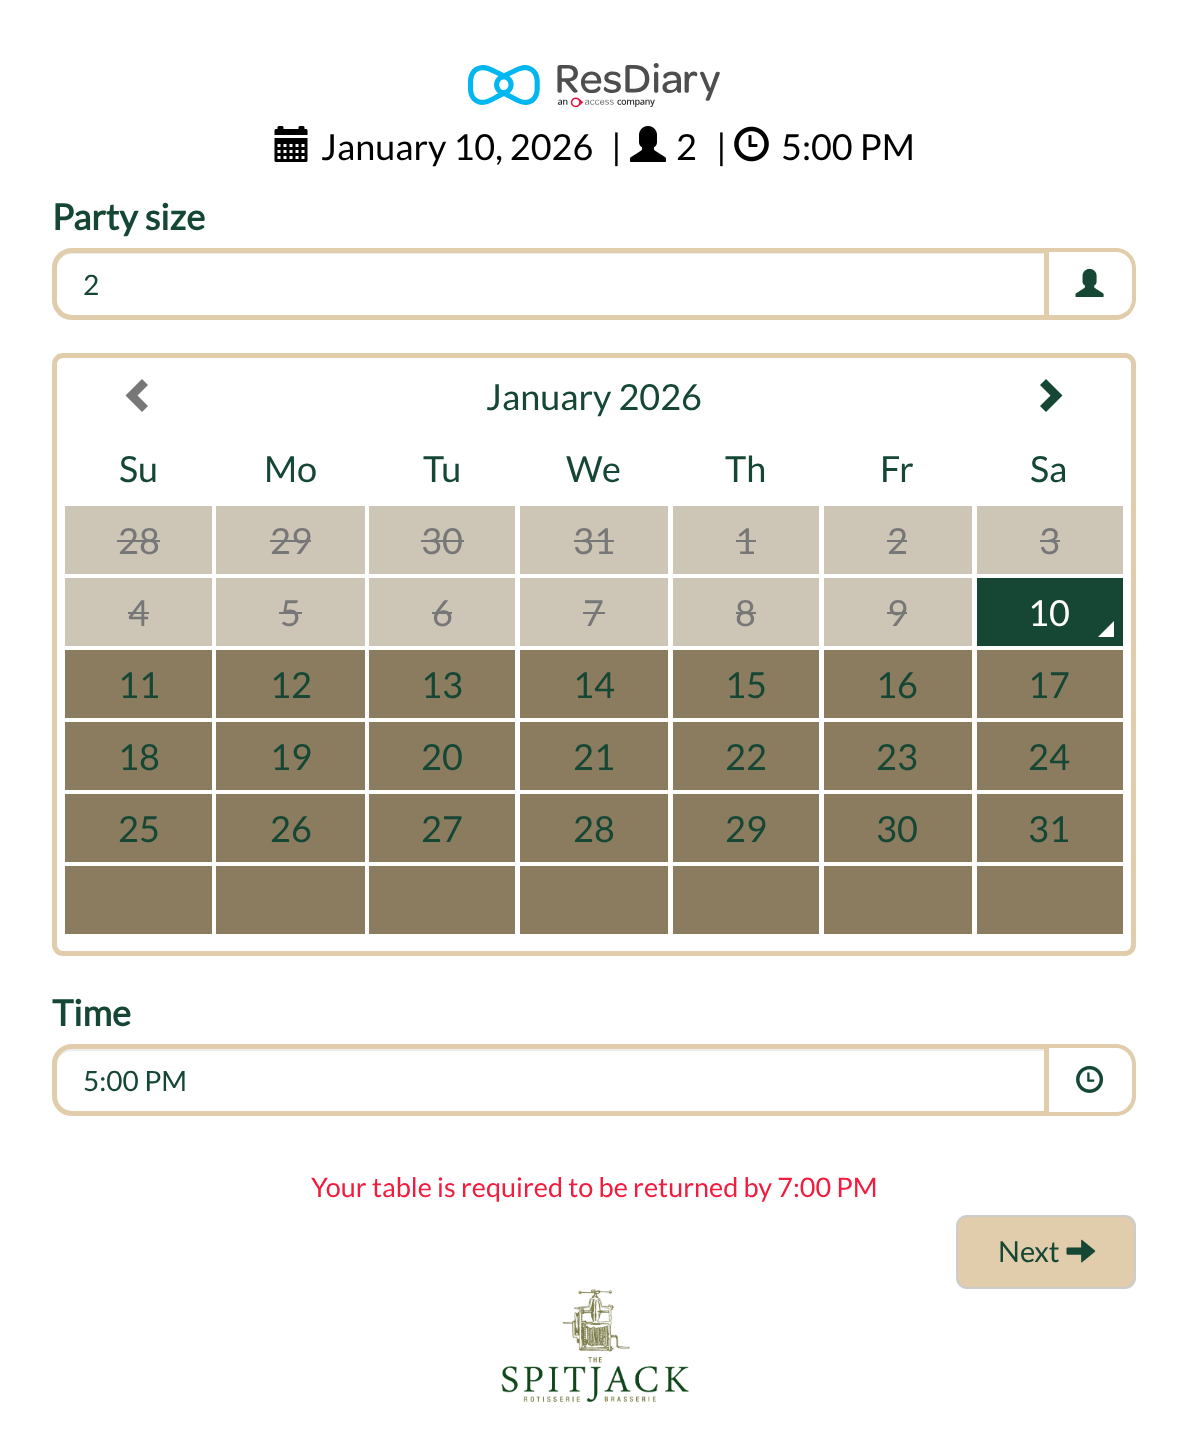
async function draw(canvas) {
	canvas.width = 1186;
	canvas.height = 1438;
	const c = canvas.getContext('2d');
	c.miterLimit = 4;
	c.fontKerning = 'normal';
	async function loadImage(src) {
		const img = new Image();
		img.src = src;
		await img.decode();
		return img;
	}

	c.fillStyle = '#fff';
	c.fillRect(0, 0, 1186, 1438);
	c.drawImage(await loadImage('img1.png'), 468, 63, 252, 45);
	c.drawImage(await loadImage('img2.png'), 274, 126, 34, 36);
	c.font = '36px Lato';
	c.fillStyle = '#000';
	c.fillText('January 10, 2026', 321, 160);
	c.fillText('|', 611, 160);
	c.drawImage(await loadImage('img3.png'), 630, 126, 36, 36);
	c.fillText('2', 676, 160);
	c.fillText('|', 716, 160);
	c.drawImage(await loadImage('img4.png'), 734, 126, 35, 36);
	c.fillText('5:00 PM', 781, 160);
	c.font = 'bold 36px Lato';
	c.fillStyle = '#154734';
	c.fillText('Party size', 52, 230);
	c.fillStyle = '#e1cdab';
	c.beginPath();
	c.moveTo(1048, 248);
	c.lineTo(1116, 248);
	c.bezierCurveTo(1127, 248, 1136, 257, 1136, 268);
	c.lineTo(1136, 299);
	c.bezierCurveTo(1136, 310, 1127, 320, 1116, 320);
	c.lineTo(1048, 320);
	c.closePath();
	c.moveTo(1048, 252);
	c.lineTo(1116, 252);
	c.bezierCurveTo(1125, 252, 1132, 259, 1132, 268);
	c.lineTo(1132, 299);
	c.bezierCurveTo(1132, 308, 1125, 315, 1116, 315);
	c.lineTo(1048, 315);
	c.closePath();
	c.fill('evenodd');
	c.fillStyle = '#fff';
	c.beginPath();
	c.roundRect(52, 248, 997, 72, [20, 0, 0, 20]);
	c.fill();
	c.fillStyle = '#ececec';
	c.beginPath();
	c.moveTo(72, 254);
	c.lineTo(1044, 254);
	c.lineTo(1044, 252);
	c.lineTo(72, 252);
	c.bezierCurveTo(62, 252, 56, 260, 56, 270);
	c.bezierCurveTo(56, 261, 63, 254, 72, 254);
	c.closePath();
	c.fill();
	c.beginPath();
	c.roundRect(54.5, 250.5, 992, 67, [17.5, 0, 0, 17.5]);
	c.strokeStyle = '#e1cdab';
	c.lineWidth = 5;
	c.stroke();
	c.font = '28px Lato';
	c.fillStyle = '#154734';
	c.fillText('2', 83, 295);
	c.drawImage(await loadImage('img5.png'), 1075, 268, 29, 29);
	c.beginPath();
	c.roundRect(54.5, 355.5, 1079, 598, 8.5);
	c.stroke();
	c.fillStyle = '#777';
	c.beginPath();
	c.moveTo(148, 385);
	c.lineTo(137.5, 395.5);
	c.lineTo(148, 406);
	c.lineTo(142, 412);
	c.lineTo(125.5, 395.5);
	c.lineTo(142, 379);
	c.closePath();
	c.fill();
	c.font = '36px Lato';
	c.fillStyle = '#154734';
	c.fillText('January 2026', 486, 410);
	c.beginPath();
	c.moveTo(1062.5, 395.5);
	c.lineTo(1046, 412);
	c.lineTo(1040, 406);
	c.lineTo(1050.5, 395.5);
	c.lineTo(1040, 385);
	c.lineTo(1046, 379);
	c.closePath();
	c.fill();
	for (const [text, x, y] of [
		['Su', 119, 482],
		['Mo', 264, 482],
		['Tu', 423, 482],
		['We', 566, 482],
		['Th', 725, 482],
		['Fr', 880, 482],
		['Sa', 1030, 482],
	]) {
		c.fillText(text, x, y);
	}
	c.fillStyle = '#cdc5b6';
	c.fillRect(65, 506, 147, 68);
	c.fillStyle = '#777';
	c.fillText('28', 118, 554);
	c.fillRect(117, 540, 43, 2);
	c.fillStyle = '#cdc5b6';
	c.fillRect(216, 506, 149, 68);
	c.fillStyle = '#777';
	c.fillText('29', 270, 554);
	c.fillRect(270, 540, 41, 2);
	c.fillStyle = '#cdc5b6';
	c.fillRect(369, 506, 146, 68);
	c.fillStyle = '#777';
	c.fillText('30', 421, 554);
	c.fillRect(421, 540, 43, 2);
	c.fillStyle = '#cdc5b6';
	c.fillRect(520, 506, 148, 68);
	c.fillStyle = '#777';
	c.fillText('31', 573, 554);
	c.fillRect(574, 540, 40, 2);
	c.fillStyle = '#cdc5b6';
	c.fillRect(673, 506, 146, 68);
	c.fillStyle = '#777';
	c.fillText('1', 735, 554);
	c.fillRect(736, 540, 20, 2);
	c.fillStyle = '#cdc5b6';
	c.fillRect(824, 506, 148, 68);
	c.fillStyle = '#777';
	c.fillText('2', 887, 554);
	c.fillRect(887, 540, 20, 2);
	c.fillStyle = '#cdc5b6';
	c.fillRect(977, 506, 146, 68);
	c.fillStyle = '#777';
	c.fillText('3', 1039, 554);
	c.fillRect(1040, 540, 20, 2);
	c.fillStyle = '#cdc5b6';
	c.fillRect(65, 578, 147, 68);
	c.fillStyle = '#777';
	c.fillText('4', 128, 626);
	c.fillRect(128, 612, 21, 2);
	c.fillStyle = '#cdc5b6';
	c.fillRect(216, 578, 149, 68);
	c.fillStyle = '#777';
	c.fillText('5', 280, 626);
	c.fillRect(279, 612, 23, 2);
	c.fillStyle = '#cdc5b6';
	c.fillRect(369, 578, 146, 68);
	c.fillStyle = '#777';
	c.fillText('6', 432, 626);
	c.fillRect(432, 612, 20, 2);
	c.fillStyle = '#cdc5b6';
	c.fillRect(520, 578, 148, 68);
	c.fillStyle = '#777';
	c.fillText('7', 583, 626);
	c.fillRect(583, 612, 22, 2);
	c.fillStyle = '#cdc5b6';
	c.fillRect(673, 578, 146, 68);
	c.fillStyle = '#777';
	c.fillText('8', 735, 626);
	c.fillRect(736, 612, 20, 2);
	c.fillStyle = '#cdc5b6';
	c.fillRect(824, 578, 148, 68);
	c.fillStyle = '#777';
	c.fillText('9', 887, 626);
	c.fillRect(887, 612, 20, 2);
	c.fillStyle = '#154734';
	c.fillRect(977, 578, 146, 68);
	c.fillStyle = '#fff';
	c.fillText('10', 1028, 626);
	c.beginPath();
	c.moveTo(1114, 637);
	c.lineTo(1098, 637);
	c.lineTo(1114, 621);
	c.closePath();
	c.fill();
	c.fillStyle = '#8b7b5f';
	c.fillRect(65, 650, 147, 68);
	c.fillStyle = '#154734';
	c.fillText('11', 118, 698);
	c.fillStyle = '#8b7b5f';
	c.fillRect(216, 650, 149, 68);
	c.fillStyle = '#154734';
	c.fillText('12', 270, 698);
	c.fillStyle = '#8b7b5f';
	c.fillRect(369, 650, 146, 68);
	c.fillStyle = '#154734';
	c.fillText('13', 421, 698);
	c.fillStyle = '#8b7b5f';
	c.fillRect(520, 650, 148, 68);
	c.fillStyle = '#154734';
	c.fillText('14', 573, 698);
	c.fillStyle = '#8b7b5f';
	c.fillRect(673, 650, 146, 68);
	c.fillStyle = '#154734';
	c.fillText('15', 725, 698);
	c.fillStyle = '#8b7b5f';
	c.fillRect(824, 650, 148, 68);
	c.fillStyle = '#154734';
	c.fillText('16', 876, 698);
	c.fillStyle = '#8b7b5f';
	c.fillRect(977, 650, 146, 68);
	c.fillStyle = '#154734';
	c.fillText('17', 1028, 698);
	c.fillStyle = '#8b7b5f';
	c.fillRect(65, 722, 147, 68);
	c.fillStyle = '#154734';
	c.fillText('18', 118, 770);
	c.fillStyle = '#8b7b5f';
	c.fillRect(216, 722, 149, 68);
	c.fillStyle = '#154734';
	c.fillText('19', 270, 770);
	c.fillStyle = '#8b7b5f';
	c.fillRect(369, 722, 146, 68);
	c.fillStyle = '#154734';
	c.fillText('20', 421, 770);
	c.fillStyle = '#8b7b5f';
	c.fillRect(520, 722, 148, 68);
	c.fillStyle = '#154734';
	c.fillText('21', 573, 770);
	c.fillStyle = '#8b7b5f';
	c.fillRect(673, 722, 146, 68);
	c.fillStyle = '#154734';
	c.fillText('22', 725, 770);
	c.fillStyle = '#8b7b5f';
	c.fillRect(824, 722, 148, 68);
	c.fillStyle = '#154734';
	c.fillText('23', 876, 770);
	c.fillStyle = '#8b7b5f';
	c.fillRect(977, 722, 146, 68);
	c.fillStyle = '#154734';
	c.fillText('24', 1028, 770);
	c.fillStyle = '#8b7b5f';
	c.fillRect(65, 794, 147, 68);
	c.fillStyle = '#154734';
	c.fillText('25', 118, 842);
	c.fillStyle = '#8b7b5f';
	c.fillRect(216, 794, 149, 68);
	c.fillStyle = '#154734';
	c.fillText('26', 270, 842);
	c.fillStyle = '#8b7b5f';
	c.fillRect(369, 794, 146, 68);
	c.fillStyle = '#154734';
	c.fillText('27', 421, 842);
	c.fillStyle = '#8b7b5f';
	c.fillRect(520, 794, 148, 68);
	c.fillStyle = '#154734';
	c.fillText('28', 573, 842);
	c.fillStyle = '#8b7b5f';
	c.fillRect(673, 794, 146, 68);
	c.fillStyle = '#154734';
	c.fillText('29', 725, 842);
	c.fillStyle = '#8b7b5f';
	c.fillRect(824, 794, 148, 68);
	c.fillStyle = '#154734';
	c.fillText('30', 876, 842);
	c.fillStyle = '#8b7b5f';
	c.fillRect(977, 794, 146, 68);
	c.fillStyle = '#154734';
	c.fillText('31', 1028, 842);
	for (const [x, y, w, h, color] of [
		[65, 866, 147, 68, '#8b7b5f'],
		[216, 866, 149, 68, '#8b7b5f'],
		[369, 866, 146, 68, '#8b7b5f'],
		[520, 866, 148, 68, '#8b7b5f'],
		[673, 866, 146, 68, '#8b7b5f'],
		[824, 866, 148, 68, '#8b7b5f'],
		[977, 866, 146, 68, '#8b7b5f'],
	]) {
		c.fillStyle = color;
		c.fillRect(x, y, w, h);
	}
	c.font = 'bold 36px Lato';
	c.fillStyle = '#154734';
	c.fillText('Time', 52, 1026);
	c.fillStyle = '#e1cdab';
	c.beginPath();
	c.moveTo(1048, 1044);
	c.lineTo(1116, 1044);
	c.bezierCurveTo(1127, 1044, 1136, 1053, 1136, 1064);
	c.lineTo(1136, 1096);
	c.bezierCurveTo(1136, 1107, 1127, 1116, 1116, 1116);
	c.lineTo(1048, 1116);
	c.closePath();
	c.moveTo(1048, 1048);
	c.lineTo(1116, 1048);
	c.bezierCurveTo(1125, 1048, 1132, 1056, 1132, 1064);
	c.lineTo(1132, 1096);
	c.bezierCurveTo(1132, 1104, 1125, 1112, 1116, 1112);
	c.lineTo(1048, 1112);
	c.closePath();
	c.fill('evenodd');
	c.fillStyle = '#fff';
	c.beginPath();
	c.roundRect(52, 1044, 997, 72, [20, 0, 0, 20]);
	c.fill();
	c.fillStyle = '#ececec';
	c.beginPath();
	c.moveTo(72, 1051);
	c.lineTo(1044, 1051);
	c.lineTo(1044, 1049);
	c.lineTo(72, 1049);
	c.bezierCurveTo(63, 1049, 56, 1057, 56, 1066);
	c.bezierCurveTo(56, 1058, 63, 1051, 72, 1051);
	c.closePath();
	c.fill();
	c.beginPath();
	c.roundRect(54.5, 1046.5, 992, 67, [17.5, 0, 0, 17.5]);
	c.stroke();
	c.font = '28px Lato';
	c.fillStyle = '#154734';
	c.fillText('5:00 PM', 83, 1091);
	c.drawImage(await loadImage('img6.png'), 1076, 1065, 28, 28);
	c.font = '27px Lato';
	c.fillStyle = '#f11c3e';
	c.fillText('Your table is required to be returned by 7:00 PM', 311, 1197);
	c.fillStyle = '#e1cdab';
	c.beginPath();
	c.roundRect(957, 1216, 178, 72, 10);
	c.fill();
	c.strokeStyle = '#ccc';
	c.lineWidth = 2;
	c.stroke();
	c.font = '29px Lato';
	c.fillStyle = '#154734';
	c.fillText('Next', 998, 1262);
	c.drawImage(await loadImage('img7.png'), 1066, 1239, 30, 24);
	c.drawImage(await loadImage('img8.png'), 501, 1289, 188, 113);
}

draw(document.querySelector('canvas'));
